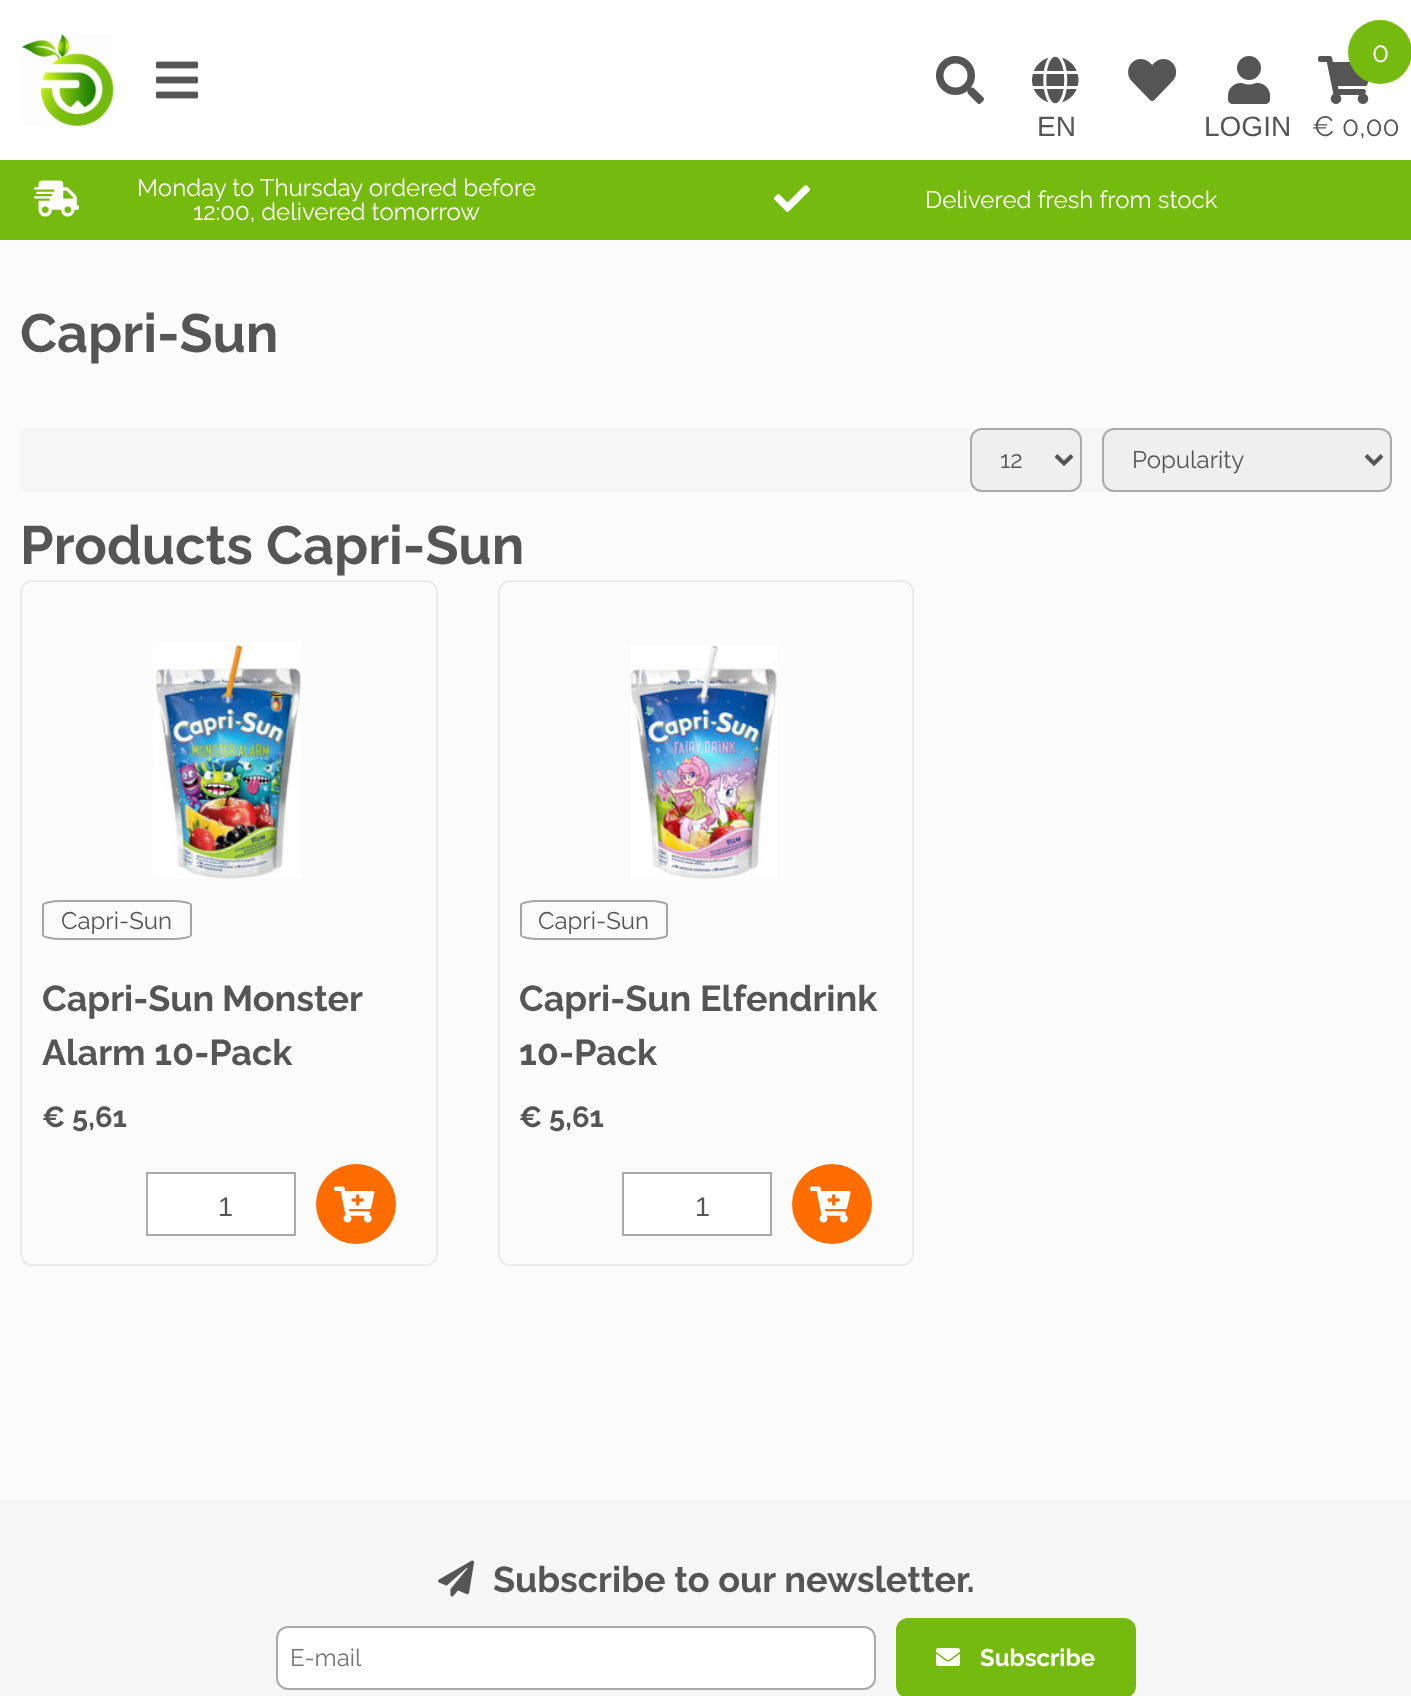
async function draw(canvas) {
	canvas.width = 1411;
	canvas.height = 1696;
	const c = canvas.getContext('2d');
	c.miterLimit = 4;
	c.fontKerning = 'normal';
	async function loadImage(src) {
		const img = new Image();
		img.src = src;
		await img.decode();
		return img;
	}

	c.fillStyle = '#fbfbfb';
	c.fillRect(0, 0, 1411, 1696);
	c.fillStyle = '#fff';
	c.fillRect(0, 0, 1411, 160);
	c.drawImage(await loadImage('img1.png'), 21, 34, 93, 93);
	c.drawImage(await loadImage('img2.png'), 156, 61, 42, 38);
	c.drawImage(await loadImage('img3.png'), 936, 56, 48, 48);
	c.drawImage(await loadImage('img4.png'), 1128, 59, 49, 42);
	c.drawImage(await loadImage('img5.png'), 1318, 56, 51, 48);
	c.fillStyle = '#75bb0f';
	c.beginPath();
	c.arc(1380, 52, 32, 0, 2 * Math.PI);
	c.fill();
	c.font = '28px Raleway';
	c.fillStyle = '#fff';
	c.fillText('0', 1372, 62);
	c.fillStyle = '#555';
	c.fillText('€', 1312, 136);
	c.fillText('0,00', 1342, 136);
	c.drawImage(await loadImage('img6.png'), 1032, 56, 47, 48);
	c.font = '28px Liberation Sans';
	c.fillText('EN', 1037, 136);
	c.drawImage(await loadImage('img7.png'), 1228, 56, 42, 48);
	c.fillText('LOGIN', 1204, 136);
	c.fillStyle = '#75bb0f';
	c.fillRect(0, 160, 1411, 80);
	c.drawImage(await loadImage('img8.png'), 34, 180, 45, 37);
	c.font = '24px Raleway';
	c.fillStyle = '#fff';
	c.fillText('Monday to Thursday ordered before', 137, 196);
	c.fillText('12:00, delivered tomorrow', 193, 220);
	c.drawImage(await loadImage('img9.png'), 774, 185, 36, 27);
	c.fillText('Delivered fresh from stock', 925, 208);
	c.font = 'bold 54px Raleway';
	c.fillStyle = '#555';
	c.fillText('Capri-Sun', 20, 352);
	c.fillStyle = '#f6f6f6';
	c.fillRect(20, 428, 1372, 64);
	c.fillStyle = '#efefef';
	c.beginPath();
	c.roundRect(971, 429, 110, 62, 11);
	c.fill();
	c.strokeStyle = '#aaa';
	c.lineWidth = 2;
	c.stroke();
	c.beginPath();
	c.moveTo(1056, 455.5);
	c.lineTo(1064, 463.5);
	c.lineTo(1072, 455.5);
	c.strokeStyle = '#555';
	c.lineWidth = 4;
	c.stroke();
	c.font = '24px Raleway';
	c.fillStyle = '#555';
	c.fillText('12', 1000, 468);
	c.fillStyle = '#efefef';
	c.beginPath();
	c.roundRect(1103, 429, 288, 62, 11);
	c.fill();
	c.strokeStyle = '#aaa';
	c.lineWidth = 2;
	c.stroke();
	c.beginPath();
	c.moveTo(1366, 455.5);
	c.lineTo(1374, 463.5);
	c.lineTo(1382, 455.5);
	c.strokeStyle = '#555';
	c.lineWidth = 4;
	c.stroke();
	c.fillStyle = '#555';
	c.fillText('Popularity', 1132, 468);
	c.font = 'bold 54px Raleway';
	c.fillText('Products Capri-Sun', 20, 564);
	c.beginPath();
	c.roundRect(21, 581, 416, 684, 11);
	c.strokeStyle = '#ebebeb';
	c.lineWidth = 2;
	c.stroke();
	c.drawImage(await loadImage('img10.png'), 153, 642, 148, 237);
	c.beginPath();
	c.moveTo(61.5, 901);
	c.lineTo(172.5, 901);
	c.bezierCurveTo(182.5, 901, 191, 903, 191, 905);
	c.lineTo(191, 935);
	c.bezierCurveTo(191, 937, 182.5, 939, 172.5, 939);
	c.lineTo(61.5, 939);
	c.bezierCurveTo(51.5, 939, 43, 937, 43, 935);
	c.lineTo(43, 905);
	c.bezierCurveTo(43, 903, 51.5, 901, 61.5, 901);
	c.closePath();
	c.strokeStyle = '#a5a5a5';
	c.stroke();
	c.font = '24px Raleway';
	c.fillText('Capri-Sun', 61, 929);
	c.wordSpacing = '-1px';
	c.font = 'bold 36px Raleway';
	c.fillText('Capri-Sun Monster', 42, 1011);
	c.wordSpacing = '0px';
	c.fillText('Alarm 10-Pack', 42, 1065);
	c.font = 'bold 29px Raleway';
	c.fillText('€ 5,61', 42, 1127);
	c.strokeStyle = '#aaa';
	c.strokeRect(147, 1173, 148, 62);
	c.fillStyle = '#fff';
	c.fillRect(148, 1174, 146, 60);
	c.font = '27px Liberation Sans';
	c.fillStyle = '#555';
	c.fillText('1', 218, 1216);
	c.fillStyle = '#ff6c00';
	c.beginPath();
	c.arc(356, 1204, 40, 0, 2 * Math.PI);
	c.fill();
	c.drawImage(await loadImage('img11.png'), 334, 1186, 41, 37);
	c.beginPath();
	c.roundRect(499, 581, 414, 684, 11);
	c.strokeStyle = '#ebebeb';
	c.stroke();
	c.drawImage(await loadImage('img12.png'), 630, 645, 147, 234);
	c.beginPath();
	c.moveTo(539, 901);
	c.lineTo(649, 901);
	c.bezierCurveTo(659, 901, 667, 903, 667, 905);
	c.lineTo(667, 935);
	c.bezierCurveTo(667, 937, 659, 939, 649, 939);
	c.lineTo(539, 939);
	c.bezierCurveTo(529, 939, 521, 937, 521, 935);
	c.lineTo(521, 905);
	c.bezierCurveTo(521, 903, 529, 901, 539, 901);
	c.closePath();
	c.strokeStyle = '#a5a5a5';
	c.stroke();
	c.font = '24px Raleway';
	c.fillStyle = '#555';
	c.fillText('Capri-Sun', 538, 929);
	c.font = 'bold 36px Raleway';
	c.fillText('Capri-Sun Elfendrink', 519, 1011);
	c.fillText('10-Pack', 519, 1065);
	c.font = 'bold 29px Raleway';
	c.fillText('€ 5,61', 519, 1127);
	c.strokeStyle = '#aaa';
	c.strokeRect(623, 1173, 148, 62);
	c.fillStyle = '#fff';
	c.fillRect(624, 1174, 146, 60);
	c.font = '27px Liberation Sans';
	c.fillStyle = '#555';
	c.fillText('1', 695, 1216);
	c.fillStyle = '#ff6c00';
	c.beginPath();
	c.arc(832, 1204, 40, 0, 2 * Math.PI);
	c.fill();
	c.drawImage(await loadImage('img11.png'), 810, 1186, 41, 37);
	c.fillStyle = '#f6f6f6';
	c.fillRect(0, 1500, 1411, 196);
	c.drawImage(await loadImage('img13.png'), 438, 1560, 37, 37);
	c.font = 'bold 36px Raleway';
	c.fillStyle = '#555';
	c.fillText('Subscribe to our newsletter.', 493, 1592);
	c.fillStyle = '#fff';
	c.beginPath();
	c.roundRect(277, 1627, 598, 62, 11);
	c.fill();
	c.stroke();
	c.font = '24px Raleway';
	c.fillStyle = '#757575';
	c.fillText('E-mail', 290, 1666);
	c.fillStyle = '#75bb0f';
	c.beginPath();
	c.roundRect(896, 1618, 240, 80, 12);
	c.fill();
	c.drawImage(await loadImage('img14.png'), 936, 1648, 24, 18);
	c.font = 'bold 24px Raleway';
	c.fillStyle = '#fff';
	c.fillText('Subscribe', 980, 1666);
}

draw(document.querySelector('canvas'));
